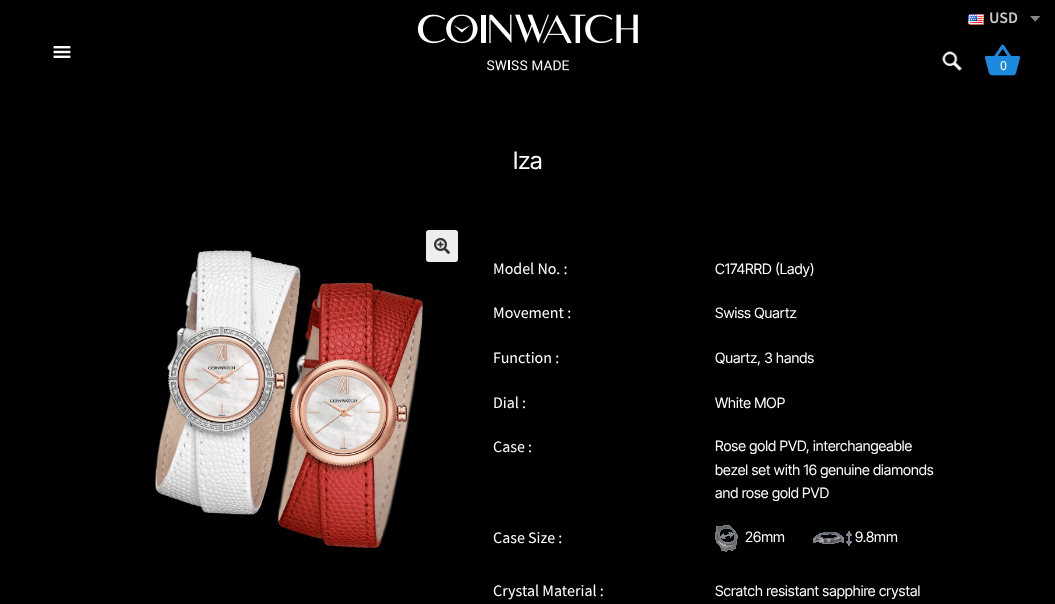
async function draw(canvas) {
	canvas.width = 1055;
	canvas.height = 604;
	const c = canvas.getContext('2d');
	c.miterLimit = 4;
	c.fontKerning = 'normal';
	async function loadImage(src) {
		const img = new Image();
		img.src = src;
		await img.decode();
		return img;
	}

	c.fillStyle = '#000';
	c.fillRect(0, 0, 1055, 604);
	c.drawImage(await loadImage('img1.png'), 53, 46, 18, 12);
	c.drawImage(await loadImage('img2.png'), 417, 14, 221, 57);
	c.drawImage(await loadImage('img3.png'), 942, 51, 20, 20);
	c.drawImage(await loadImage('img4.png'), 1030, 16, 11, 6);
	c.drawImage(await loadImage('img5.png'), 968, 14, 16, 11);
	c.font = '600 16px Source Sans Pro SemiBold';
	c.fillStyle = '#c9c9c9';
	c.fillText('USD', 989, 23);
	c.font = '24px Inter Tight';
	c.fillStyle = '#fff';
	c.fillText('Iza', 513, 169);
	c.fillStyle = '#eee';
	c.beginPath();
	c.roundRect(426, 230, 32, 32, 3);
	c.fill();
	c.drawImage(await loadImage('img6.png'), 434, 238, 16, 16);
	c.drawImage(await loadImage('img7.png'), 155, 250, 268, 298);
	c.font = '16px Source Sans Pro';
	c.fillStyle = '#fff';
	c.fillText('Model No. :', 493, 274);
	c.font = '14.4px Inter Tight';
	c.fillText('C174RRD (Lady)', 715, 274);
	c.font = '16px Source Sans Pro';
	c.fillText('Movement :', 493, 318);
	c.font = '14.4px Inter Tight';
	c.fillText('Swiss Quartz', 715, 318);
	c.font = '16px Source Sans Pro';
	c.fillText('Function :', 493, 363);
	c.font = '14.4px Inter Tight';
	c.fillText('Quartz, 3 hands', 715, 363);
	c.font = '16px Source Sans Pro';
	c.fillText('Dial :', 493, 408);
	c.font = '14.4px Inter Tight';
	c.fillText('White MOP', 715, 408);
	c.font = '16px Source Sans Pro';
	c.fillText('Case :', 493, 452);
	c.font = '14.4px Inter Tight';
	for (const [text, x, y] of [
		['Rose gold PVD, interchangeable', 715, 451],
		['bezel set with 16 genuine diamonds', 715, 475],
		['and rose gold PVD', 715, 498],
	]) {
		c.fillText(text, x, y);
	}
	c.font = '16px Source Sans Pro';
	c.fillText('Case Size :', 493, 543);
	c.drawImage(await loadImage('img8.png'), 715, 525, 23, 27);
	c.font = '14.4px Inter Tight';
	c.fillText('26mm', 745, 542);
	c.drawImage(await loadImage('img9.png'), 813, 531, 39, 15);
	c.fillText('9.8mm', 855, 542);
	c.font = '16px Source Sans Pro';
	c.fillText('Crystal Material :', 493, 596);
	c.font = '14.4px Inter Tight';
	c.fillText('Scratch resistant sapphire crystal', 715, 596);
	c.drawImage(await loadImage('img10.png'), 985, 44, 35, 32);
	c.fillStyle = '#1c8bdf';
	c.beginPath();
	c.arc(1003, 65, 9, 0, 2 * Math.PI);
	c.fill();
	c.font = '14px Source Sans Pro';
	c.fillStyle = '#fff';
	c.fillText('0', 1000, 70);
}

draw(document.querySelector('canvas'));
